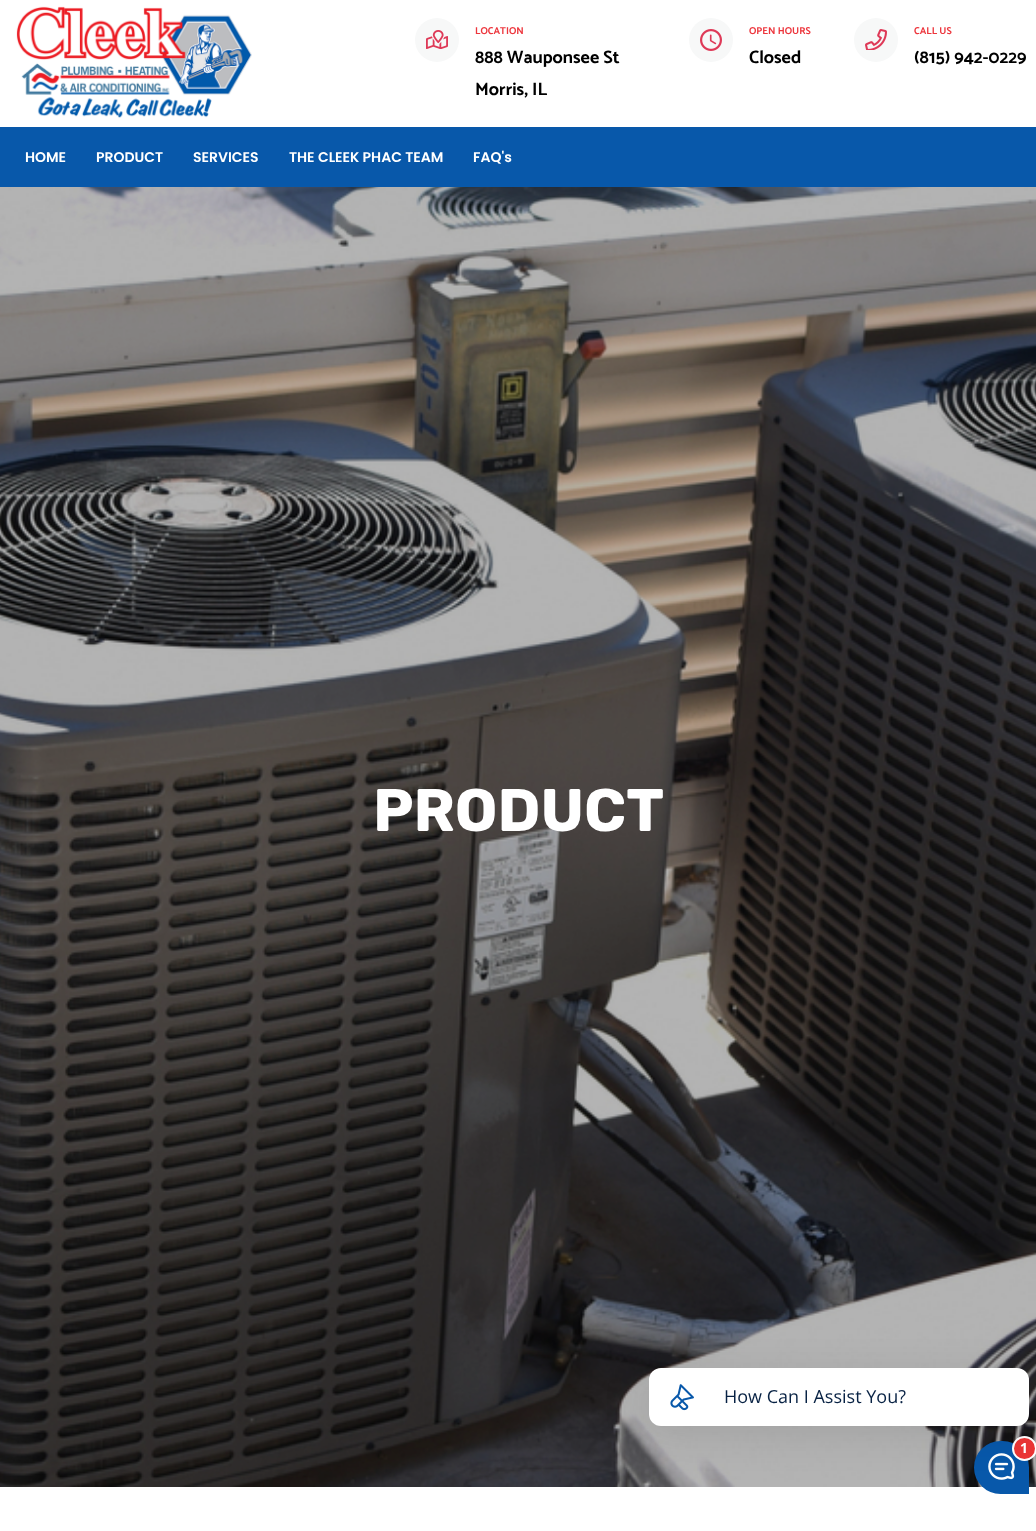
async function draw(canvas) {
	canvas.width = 1036;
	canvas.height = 1531;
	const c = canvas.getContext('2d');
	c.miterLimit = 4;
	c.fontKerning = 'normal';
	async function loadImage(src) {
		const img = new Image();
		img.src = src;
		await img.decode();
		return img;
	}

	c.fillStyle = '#fff';
	c.fillRect(0, 0, 1036, 1531);
	c.drawImage(await loadImage('img1.png'), 16, 6, 236, 112);
	c.fillStyle = '#f7f8f8';
	c.beginPath();
	c.arc(437, 40, 22, 0, 2 * Math.PI);
	c.fill();
	c.drawImage(await loadImage('img2.png'), 426, 30, 22, 19);
	c.font = 'bold 10px Catamaran';
	c.fillStyle = '#ed363d';
	c.fillText('LOCATION', 475, 34);
	c.font = 'bold 18px Catamaran';
	c.fillStyle = '#000';
	c.fillText('888 Wauponsee St', 475, 63);
	c.fillText('Morris, IL', 475, 95);
	c.fillStyle = '#f7f8f8';
	c.beginPath();
	c.arc(711, 40, 22, 0, 2 * Math.PI);
	c.fill();
	c.drawImage(await loadImage('img3.png'), 700, 29, 22, 22);
	c.font = 'bold 10px Catamaran';
	c.fillStyle = '#ed363d';
	c.fillText('OPEN HOURS', 749, 34);
	c.font = 'bold 18px Catamaran';
	c.fillStyle = '#000';
	c.fillText('Closed', 749, 63);
	c.fillStyle = '#f7f8f8';
	c.beginPath();
	c.arc(876, 40, 22, 0, 2 * Math.PI);
	c.fill();
	c.drawImage(await loadImage('img4.png'), 865, 29, 22, 21);
	c.font = 'bold 10px Catamaran';
	c.fillStyle = '#ed363d';
	c.fillText('CALL US', 914, 34);
	c.font = 'bold 18px Catamaran';
	c.fillStyle = '#000';
	c.fillText('(815) 942-0229', 914, 63);
	c.fillStyle = '#0858aa';
	c.fillRect(0, 127, 1036, 60);
	c.font = '600 14px Poppins';
	c.fillStyle = '#fff';
	for (const [text, x, y] of [
		['HOME', 25, 162],
		['PRODUCT', 96, 162],
		['SERVICES', 193, 162],
		['THE CLEEK PHAC TEAM', 289, 162],
		['FAQ\'s', 473, 162],
	]) {
		c.fillText(text, x, y);
	}
	c.drawImage(await loadImage('img5.png'), 0, 187, 1036, 1300);
	c.font = 'bold 60px Rubik';
	c.fillText('PRODUCT', 373, 831);
	c.fillStyle = '#0858aa';
	c.beginPath();
	c.roundRect(974, 1441, 55, 53, [26.5, 26.5, 0, 26.5]);
	c.fill();
	c.drawImage(await loadImage('img7.png'), 988, 1453, 27, 27);
	c.fillStyle = '#eb3535';
	c.beginPath();
	c.arc(1024.5, 1448.5, 11.5, 0, 2 * Math.PI);
	c.fill();
	c.strokeStyle = '#fff';
	c.lineWidth = 2;
	c.stroke();
	c.fillStyle = '#0000001a';
	c.filter = 'blur(20px)';
	c.beginPath();
	c.roundRect(646, 1378, 376, 54, 10);
	c.fill();
	c.filter = 'none';
	c.fillStyle = '#fff';
	c.beginPath();
	c.roundRect(649, 1368, 380, 58, 12);
	c.fill();
	c.drawImage(await loadImage('img6.png'), 670, 1384, 24, 27);
	c.font = '18px Open Sans';
	c.fillStyle = '#082244';
	c.fillText('How Can I Assist You?', 724, 1403);
	c.font = 'bold 14px Open Sans';
	c.fillStyle = '#fff';
	c.fillText('1', 1020, 1453);
}

draw(document.querySelector('canvas'));
